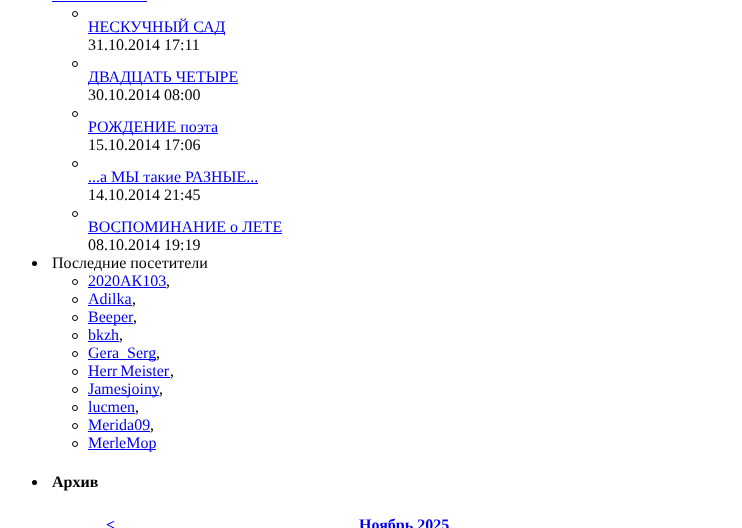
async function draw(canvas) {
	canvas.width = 742;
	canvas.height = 528;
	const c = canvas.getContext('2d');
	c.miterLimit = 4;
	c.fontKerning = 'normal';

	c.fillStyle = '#fff';
	c.fillRect(0, 0, 742, 528);
	c.fillStyle = '#00e';
	c.fillRect(52, 1, 95, 1);
	c.beginPath();
	c.arc(75, 14, 2.5, 0, 2 * Math.PI);
	c.strokeStyle = '#000';
	c.stroke();
	c.fillRect(88, 33, 137, 1);
	c.font = '16px Liberation Serif';
	c.fillText('НЕСКУЧНЫЙ САД', 88, 32);
	c.fillStyle = '#000';
	c.fillText('31.10.2014 17:11', 88, 50);
	c.beginPath();
	c.arc(75, 64, 2.5, 0, 2 * Math.PI);
	c.stroke();
	c.fillStyle = '#00e';
	c.fillRect(88, 83, 150, 1);
	c.fillText('ДВАДЦАТЬ ЧЕТЫРЕ', 88, 82);
	c.fillStyle = '#000';
	c.fillText('30.10.2014 08:00', 88, 100);
	c.beginPath();
	c.arc(75, 114, 2.5, 0, 2 * Math.PI);
	c.stroke();
	c.fillStyle = '#00e';
	c.fillRect(88, 133, 130, 1);
	c.fillText('РОЖДЕНИЕ поэта', 88, 132);
	c.fillStyle = '#000';
	c.fillText('15.10.2014 17:06', 88, 150);
	c.beginPath();
	c.arc(75, 164, 2.5, 0, 2 * Math.PI);
	c.stroke();
	c.fillStyle = '#00e';
	c.fillText('...а МЫ такие РАЗНЫЕ...', 88, 182);
	c.fillRect(88, 183, 170, 1);
	c.fillStyle = '#000';
	c.fillText('14.10.2014 21:45', 88, 200);
	c.beginPath();
	c.arc(75, 214, 2.5, 0, 2 * Math.PI);
	c.stroke();
	c.fillStyle = '#00e';
	c.fillText('ВОСПОМИНАНИЕ о ЛЕТЕ', 88, 232);
	c.fillRect(88, 233, 194, 1);
	c.fillStyle = '#000';
	c.fillText('08.10.2014 19:19', 88, 250);
	c.beginPath();
	c.arc(34.5, 263.5, 2.5, 0, 2 * Math.PI);
	c.fill();
	c.fillText('Последние посетители', 52, 268);
	c.beginPath();
	c.arc(75, 282, 2.5, 0, 2 * Math.PI);
	c.stroke();
	c.fillStyle = '#00e';
	c.fillText('2020АК103', 88, 286);
	c.fillRect(88, 287, 78, 1);
	c.fillStyle = '#000';
	c.fillText(',', 166, 286);
	c.beginPath();
	c.arc(75, 300, 2.5, 0, 2 * Math.PI);
	c.stroke();
	c.fillStyle = '#00e';
	c.fillText('Adilka', 88, 304);
	c.fillRect(88, 305, 44, 1);
	c.fillStyle = '#000';
	c.fillText(',', 132, 304);
	c.beginPath();
	c.arc(75, 318, 2.5, 0, 2 * Math.PI);
	c.stroke();
	c.fillStyle = '#00e';
	c.fillRect(88, 323, 45, 1);
	c.fillText('Beeper', 88, 322);
	c.fillStyle = '#000';
	c.fillText(',', 133, 322);
	c.beginPath();
	c.arc(75, 336, 2.5, 0, 2 * Math.PI);
	c.stroke();
	c.fillStyle = '#00e';
	c.fillText('bkzh', 88, 340);
	c.fillRect(88, 341, 31, 1);
	c.fillStyle = '#000';
	c.fillText(',', 119, 340);
	c.beginPath();
	c.arc(75, 354, 2.5, 0, 2 * Math.PI);
	c.stroke();
	c.fillStyle = '#00e';
	c.fillRect(88, 359, 68, 1);
	c.fillText('Gera_Serg', 88, 358);
	c.fillStyle = '#000';
	c.fillText(',', 156, 358);
	c.beginPath();
	c.arc(75, 372, 2.5, 0, 2 * Math.PI);
	c.stroke();
	c.wordSpacing = '-1px';
	c.fillStyle = '#00e';
	c.fillText('Herr Meister', 88, 376);
	c.fillRect(88, 377, 82, 1);
	c.wordSpacing = '0px';
	c.fillStyle = '#000';
	c.fillText(',', 170, 376);
	c.beginPath();
	c.arc(75, 390, 2.5, 0, 2 * Math.PI);
	c.stroke();
	c.fillStyle = '#00e';
	c.fillRect(88, 395, 71, 1);
	c.fillText('Jamesjoiny', 88, 394);
	c.fillStyle = '#000';
	c.fillText(',', 159, 394);
	c.beginPath();
	c.arc(75, 408, 2.5, 0, 2 * Math.PI);
	c.stroke();
	c.fillStyle = '#00e';
	c.fillText('lucmen', 88, 412);
	c.fillRect(88, 413, 47, 1);
	c.fillStyle = '#000';
	c.fillText(',', 135, 412);
	c.beginPath();
	c.arc(75, 426, 2.5, 0, 2 * Math.PI);
	c.stroke();
	c.fillStyle = '#00e';
	c.fillText('Merida09', 88, 430);
	c.fillRect(88, 431, 62, 1);
	c.fillStyle = '#000';
	c.fillText(',', 150, 430);
	c.beginPath();
	c.arc(75, 444, 2.5, 0, 2 * Math.PI);
	c.stroke();
	c.fillStyle = '#00e';
	c.fillRect(88, 449, 68, 1);
	c.fillText('MerleMop', 88, 448);
	c.fillStyle = '#000';
	c.beginPath();
	c.arc(34.5, 482.5, 2.5, 0, 2 * Math.PI);
	c.fill();
	c.font = 'bold 16px Liberation Serif';
	c.fillText('Архив', 52, 487);
	c.fillStyle = '#00e';
	c.fillText('<', 106, 530);
	c.fillText('Ноябрь 2025', 359, 530);
}

draw(document.querySelector('canvas'));
